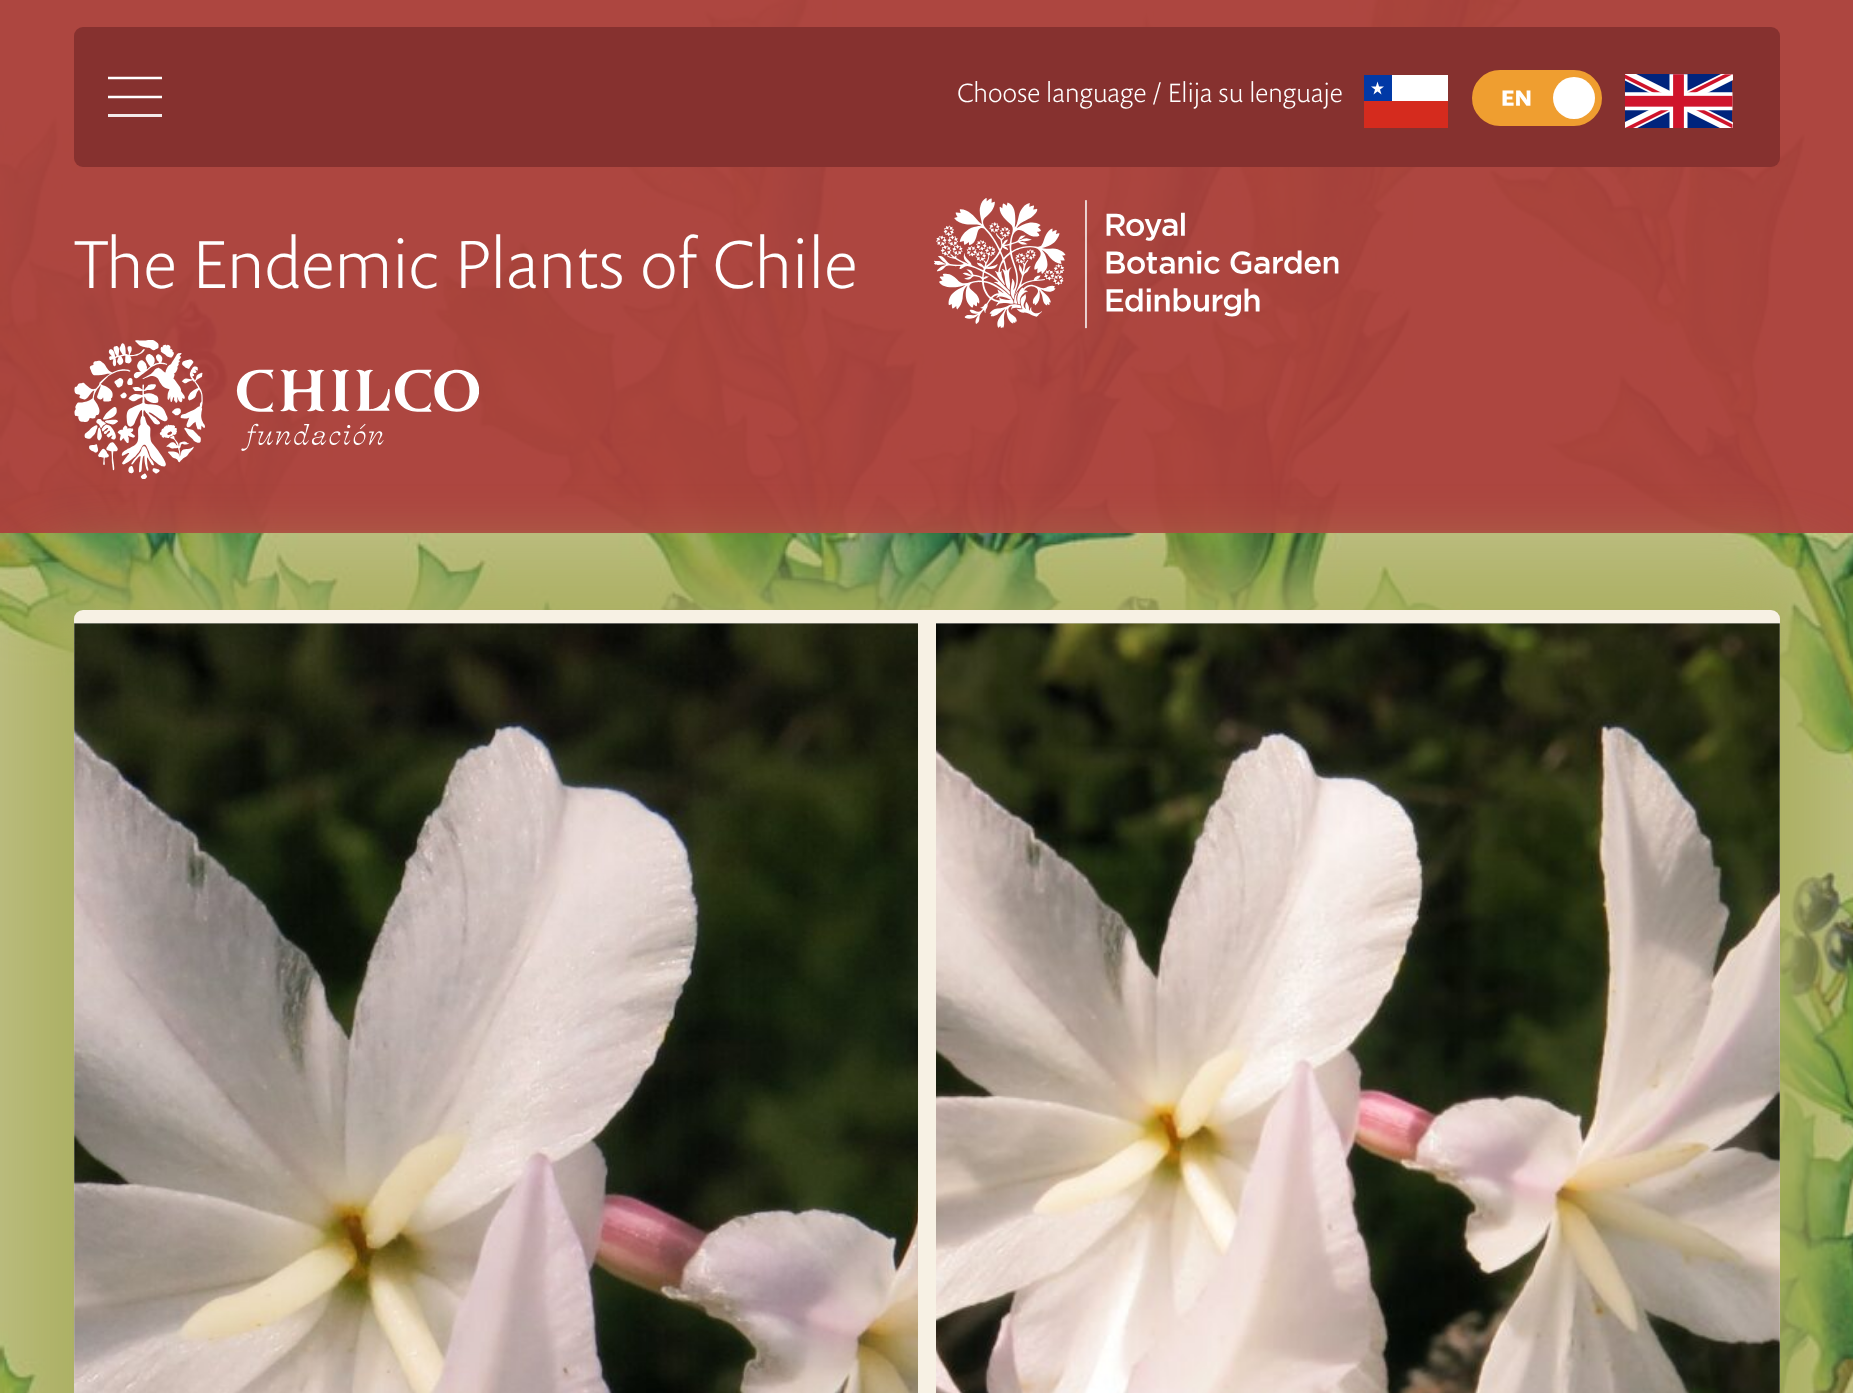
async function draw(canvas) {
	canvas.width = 1853;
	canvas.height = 1393;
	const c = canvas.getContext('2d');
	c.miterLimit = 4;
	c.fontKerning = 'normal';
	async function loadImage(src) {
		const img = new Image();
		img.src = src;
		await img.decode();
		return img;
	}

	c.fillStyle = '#fff';
	c.fillRect(0, 0, 1853, 1393);
	c.drawImage(await loadImage('img1.png'), 0, 0, 1853, 1393);
	c.fillStyle = '#ac3f3cf2';
	c.fillRect(0, 0, 1853, 533);
	c.fillStyle = '#86312f';
	c.beginPath();
	c.roundRect(74, 27, 1706, 140, 9);
	c.fill();
	c.beginPath();
	c.moveTo(108, 78);
	c.lineTo(162, 78);
	c.moveTo(108, 97);
	c.lineTo(162, 97);
	c.strokeStyle = '#fff';
	c.lineWidth = 2.7;
	c.stroke();
	c.fillStyle = '#f3eaea';
	c.fillRect(108, 114, 54, 3);
	c.font = '300 26.75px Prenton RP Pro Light';
	c.fillStyle = '#fff';
	c.fillText('Choose language / Elija su lenguaje', 957, 102);
	c.fillStyle = '#0039a6';
	c.fillRect(1364, 75, 28, 26);
	c.fillStyle = '#fff';
	c.fillRect(1392, 75, 56, 26);
	c.beginPath();
	c.moveTo(1373.5, 94.5);
	c.lineTo(1377.5, 81.5);
	c.lineTo(1381.5, 94.5);
	c.lineTo(1371, 86.5);
	c.lineTo(1384, 86.5);
	c.fill();
	c.fillStyle = '#d52b1e';
	c.fillRect(1364, 101, 84, 27);
	c.fillStyle = '#ef9e30';
	c.beginPath();
	c.roundRect(1474.5, 72.5, 125, 51, 25.5);
	c.fill();
	c.strokeStyle = '#ef9e30';
	c.lineWidth = 5;
	c.stroke();
	c.drawImage(await loadImage('img2.png'), 1502, 90, 29, 16);
	c.fillStyle = '#fff';
	c.beginPath();
	c.arc(1574, 98, 21, 0, 2 * Math.PI);
	c.fill();
	c.drawImage(await loadImage('img3.png'), 1625, 74, 108, 54);
	c.font = '300 68.8px Prenton RP Pro Light';
	c.fillText('The Endemic Plants of Chile', 74, 288);
	c.drawImage(await loadImage('img4.png'), 934, 198, 405, 131);
	c.drawImage(await loadImage('img5.png'), 74, 340, 405, 139);
	c.fillStyle = '#aaae5fe6';
	c.filter = 'blur(34px)';
	c.beginPath();
	c.roundRect(29, 565, 1796, 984, 54);
	c.fill();
	c.filter = 'none';
	c.fillStyle = '#f7f1e4';
	c.beginPath();
	c.roundRect(74, 610, 1706, 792, 9);
	c.fill();
	c.fillStyle = '#d3d3d3';
	c.fillRect(74, 623, 844, 770);
	c.drawImage(await loadImage('img6.png'), 74, 623, 844, 770);
	c.fillRect(936, 623, 844, 770);
	c.drawImage(await loadImage('img7.png'), 936, 623, 844, 770);
}

draw(document.querySelector('canvas'));
